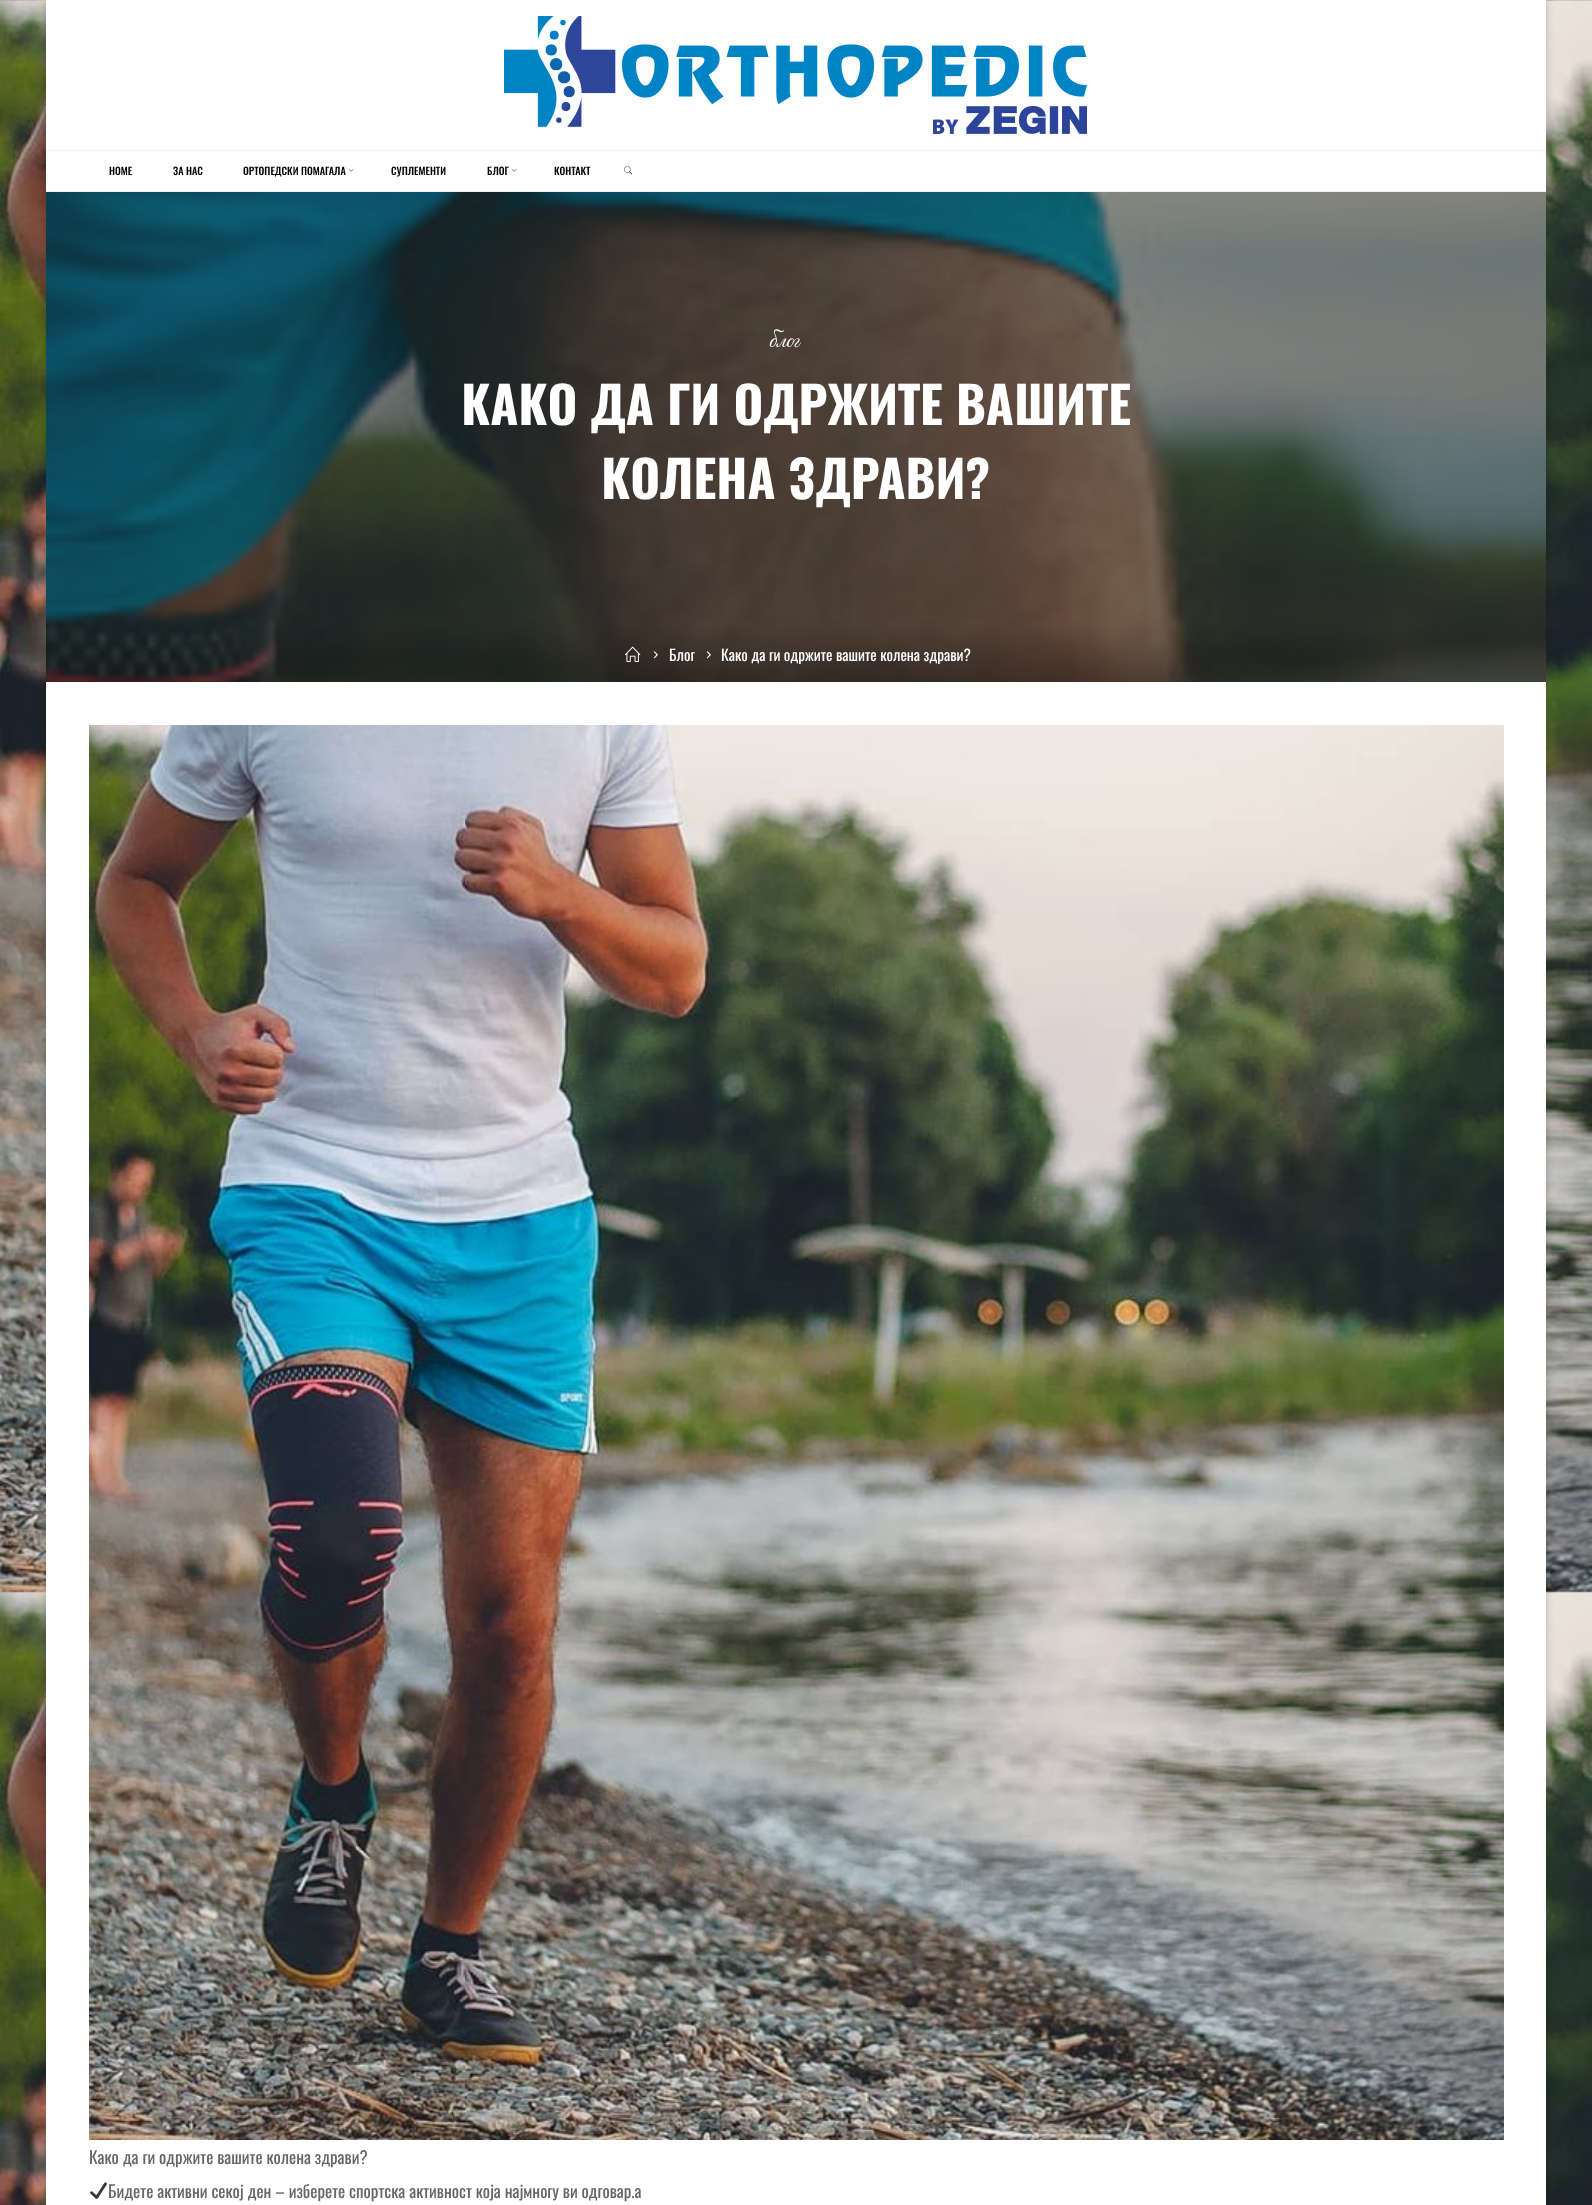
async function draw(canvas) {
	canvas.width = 1592;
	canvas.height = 2205;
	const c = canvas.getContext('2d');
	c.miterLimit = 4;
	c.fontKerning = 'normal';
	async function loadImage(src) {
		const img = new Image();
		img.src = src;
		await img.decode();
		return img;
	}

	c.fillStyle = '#fff';
	c.fillRect(0, 0, 1592, 2205);
	c.drawImage(await loadImage('img1.png'), 0, 0, 1592, 2205);
	c.fillStyle = '#00000033';
	c.filter = 'blur(4px)';
	c.beginPath();
	c.rect(46, 0, 1500, 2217);
	c.fill();
	c.filter = 'none';
	c.fillStyle = '#fff';
	c.fillRect(46, 0, 1500, 191);
	c.drawImage(await loadImage('img2.png'), 504, 16, 584, 120);
	c.fillStyle = '#f2f2f2';
	c.fillRect(46, 150, 1500, 1);
	c.fillRect(46, 191, 1500, 1);
	c.font = '500 10.25px Oswald';
	c.fillStyle = '#000';
	for (const [text, x, y] of [
		['HOME', 109, 175],
		['ЗА НАС', 173, 175],
		['ОРТОПЕДСКИ ПОМАГАЛА', 243, 175],
	]) {
		c.fillText(text, x, y);
	}
	c.drawImage(await loadImage('img3.png'), 348, 169, 6, 3);
	c.fillText('СУПЛЕМЕНТИ', 391, 175);
	c.fillText('БЛОГ', 487, 175);
	c.drawImage(await loadImage('img3.png'), 511, 169, 6, 3);
	c.fillText('КОНТАКТ', 554, 175);
	c.drawImage(await loadImage('img4.png'), 624, 166, 8, 9);
	c.drawImage(await loadImage('img5.png'), 46, 192, 1500, 490);
	c.font = '25px Great Vibes';
	c.fillStyle = '#fff';
	c.fillText('блог', 769, 347);
	c.font = 'bold 51px Oswald';
	c.fillText('КАКО ДА ГИ ОДРЖИТЕ ВАШИТЕ', 461, 425);
	c.fillText('КОЛЕНА ЗДРАВИ?', 601, 499);
	c.drawImage(await loadImage('img6.png'), 625, 646, 16, 16);
	c.drawImage(await loadImage('img7.png'), 653, 651, 5, 8);
	c.font = '15.25px Oswald';
	c.fillText('Блог', 669, 661);
	c.drawImage(await loadImage('img8.png'), 706, 651, 5, 8);
	c.fillText('Како да ги одржите вашите колена здрави?', 721, 661);
	c.fillRect(46, 682, 1500, 1523);
	c.drawImage(await loadImage('img9.png'), 89, 725, 1415, 1415);
	c.font = '17px Oswald';
	c.fillStyle = '#666';
	c.fillText('Како да ги одржите вашите колена здрави?', 89, 2164);
	c.drawImage(await loadImage('img10.png'), 90, 2182, 17, 17);
	c.fillText('Бидете активни секој ден – изберете спортска активност која најмногу ви одговар.а', 108, 2198);
}

draw(document.querySelector('canvas'));
